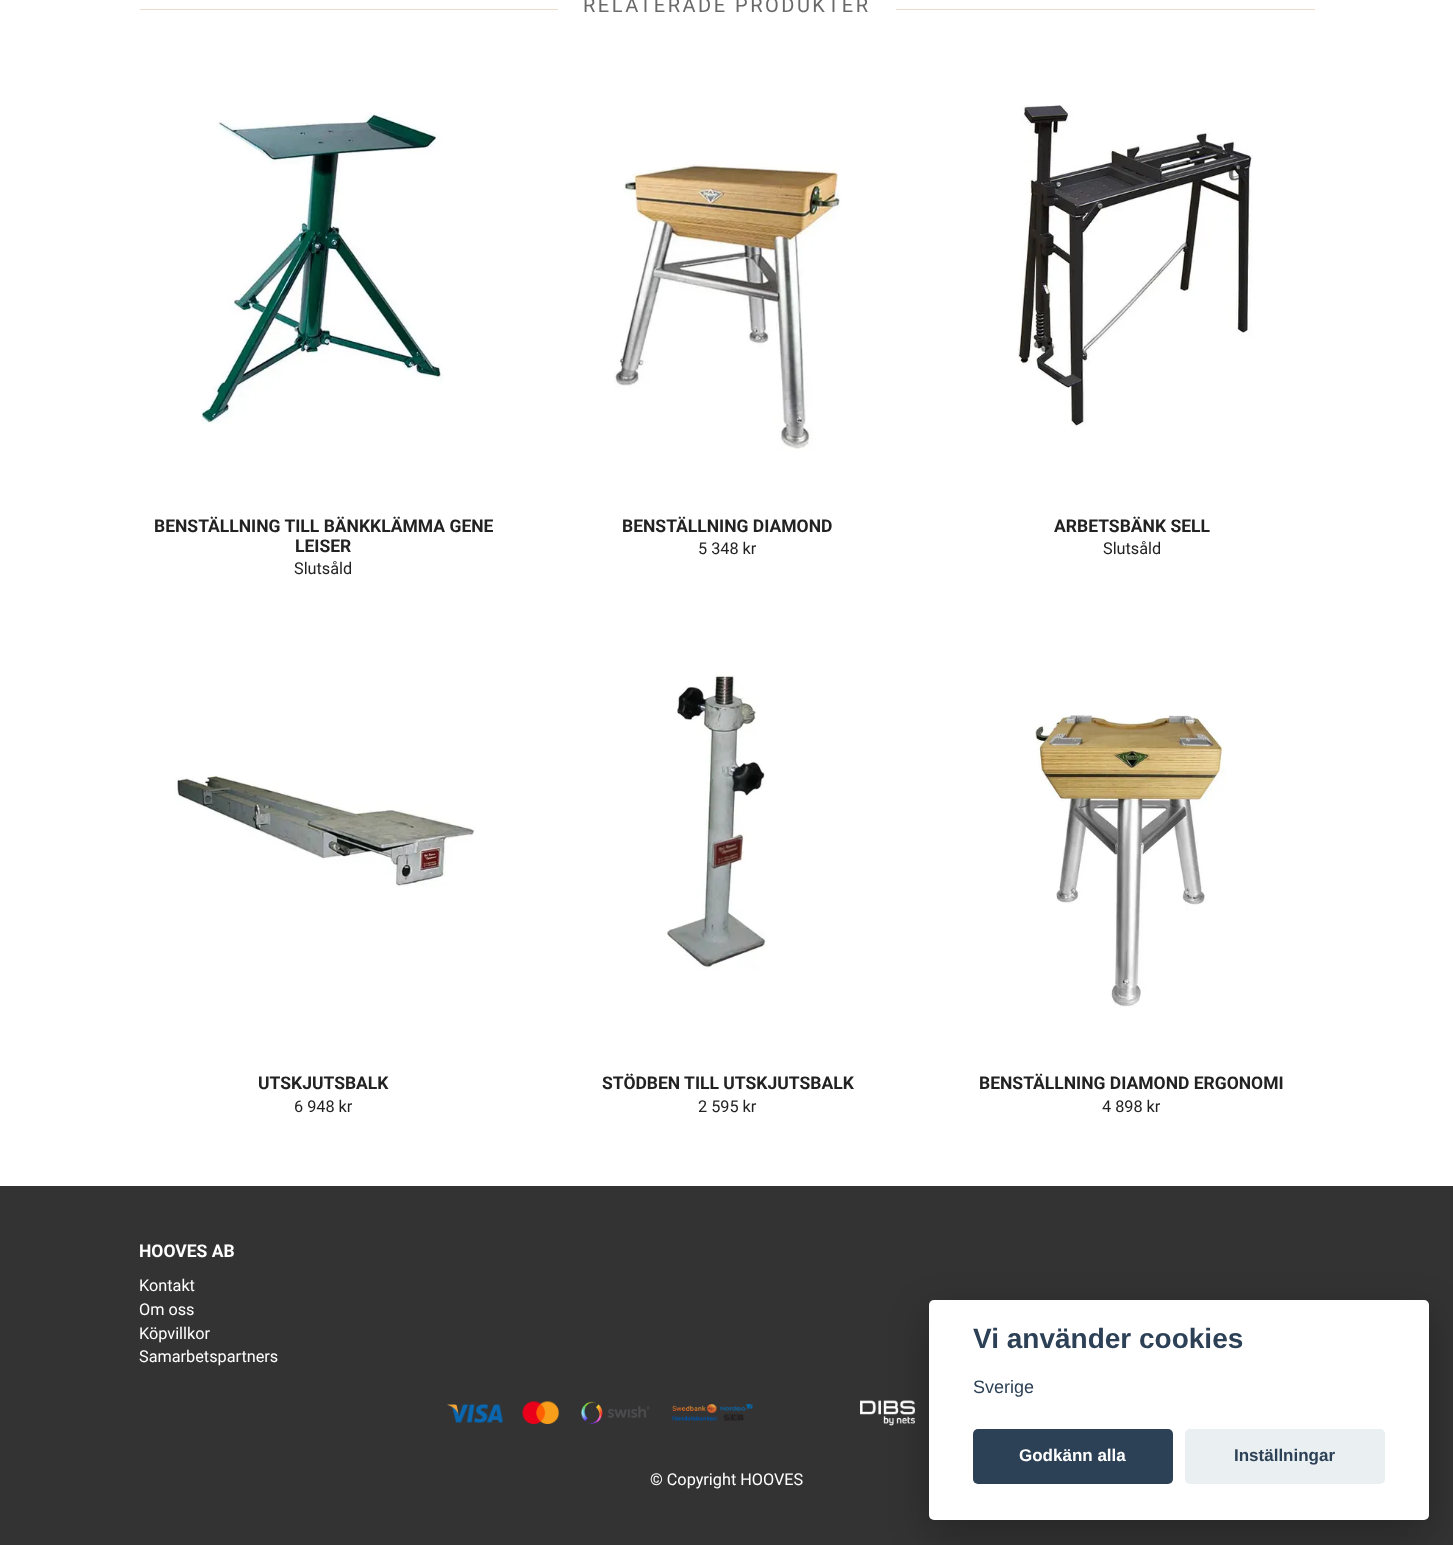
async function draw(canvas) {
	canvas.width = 1453;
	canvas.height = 1545;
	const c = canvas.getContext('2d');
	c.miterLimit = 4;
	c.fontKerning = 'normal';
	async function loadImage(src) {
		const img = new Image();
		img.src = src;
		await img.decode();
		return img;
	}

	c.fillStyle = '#fff';
	c.fillRect(0, 0, 1453, 1545);
	c.fillStyle = '#eddbcc';
	c.fillRect(140, 9, 1175, 1);
	c.fillStyle = '#fff';
	c.fillRect(558, 9, 338, 1);
	c.letterSpacing = '2.5px';
	c.font = '20px Roboto';
	c.fillStyle = '#696969';
	c.fillText('RELATERADE PRODUKTER', 583, 12);
	c.drawImage(await loadImage('img1.png'), 201, 112, 242, 312);
	c.letterSpacing = '0px';
	c.font = 'bold 17.5px Roboto';
	c.fillStyle = '#222';
	c.fillText('BENSTÄLLNING TILL BÄNKKLÄMMA GENE', 154, 532);
	c.fillText('LEISER', 295, 552);
	c.font = '16.25px Roboto';
	c.fillText('Slutsåld', 294, 574);
	c.drawImage(await loadImage('img2.png'), 614, 164, 227, 286);
	c.font = 'bold 17.5px Roboto';
	c.fillText('BENSTÄLLNING DIAMOND', 622, 532);
	c.font = '16.25px Roboto';
	c.fillText('5 348 kr', 698, 554);
	c.drawImage(await loadImage('img3.png'), 1018, 105, 235, 322);
	c.font = 'bold 17.5px Roboto';
	c.fillText('ARBETSBÄNK SELL', 1054, 532);
	c.font = '16.25px Roboto';
	c.fillText('Slutsåld', 1103, 554);
	c.drawImage(await loadImage('img4.png'), 175, 775, 300, 112);
	c.font = 'bold 17.5px Roboto';
	c.fillText('UTSKJUTSBALK', 258, 1089);
	c.font = '16.25px Roboto';
	c.fillText('6 948 kr', 294, 1112);
	c.drawImage(await loadImage('img5.png'), 667, 674, 99, 296);
	c.font = 'bold 17.5px Roboto';
	c.fillText('STÖDBEN TILL UTSKJUTSBALK', 602, 1089);
	c.font = '16.25px Roboto';
	c.fillText('2 595 kr', 698, 1112);
	c.drawImage(await loadImage('img6.png'), 1034, 714, 193, 294);
	c.font = 'bold 17.5px Roboto';
	c.fillText('BENSTÄLLNING DIAMOND ERGONOMI', 979, 1089);
	c.font = '16.25px Roboto';
	c.fillText('4 898 kr', 1102, 1112);
	c.fillStyle = '#333';
	c.fillRect(0, 1186, 1453, 359);
	c.font = 'bold 17.5px Roboto';
	c.fillStyle = '#fff';
	c.fillText('HOOVES AB', 139, 1257);
	c.font = '16.25px Roboto';
	for (const [text, x, y] of [
		['Kontakt', 139, 1291],
		['Om oss', 139, 1315],
		['Köpvillkor', 139, 1339],
		['Samarbetspartners', 139, 1362],
	]) {
		c.fillText(text, x, y);
	}
	c.drawImage(await loadImage('img7.png'), 447, 1404, 56, 19);
	c.drawImage(await loadImage('img8.png'), 522, 1401, 37, 23);
	c.drawImage(await loadImage('img9.png'), 581, 1401, 69, 23);
	c.drawImage(await loadImage('img10.png'), 672, 1404, 81, 17);
	c.drawImage(await loadImage('img11.png'), 860, 1400, 55, 26);
	c.fillText('© Copyright HOOVES', 650, 1485);
	c.fillStyle = '#02020347';
	c.filter = 'blur(19px)';
	c.beginPath();
	c.roundRect(929, 1313, 500, 220, 5);
	c.fill();
	c.filter = 'none';
	c.fillStyle = '#fff';
	c.beginPath();
	c.roundRect(929, 1300, 500, 220, 5);
	c.fill();
	c.font = 'bold 28px Liberation Sans';
	c.fillStyle = '#2d4156';
	c.fillText('Vi använder cookies', 973, 1348);
	c.font = '18px Liberation Sans';
	c.fillText('Sverige', 973, 1393);
	c.beginPath();
	c.roundRect(973, 1429, 200, 55, 5);
	c.fill();
	c.font = 'bold 17px Liberation Sans';
	c.fillStyle = '#fff';
	c.fillText('Godkänn alla', 1019, 1461);
	c.fillStyle = '#eaeff2';
	c.beginPath();
	c.roundRect(1185, 1429, 200, 55, 5);
	c.fill();
	c.fillStyle = '#2d4156';
	c.fillText('Inställningar', 1234, 1461);
}

draw(document.querySelector('canvas'));
